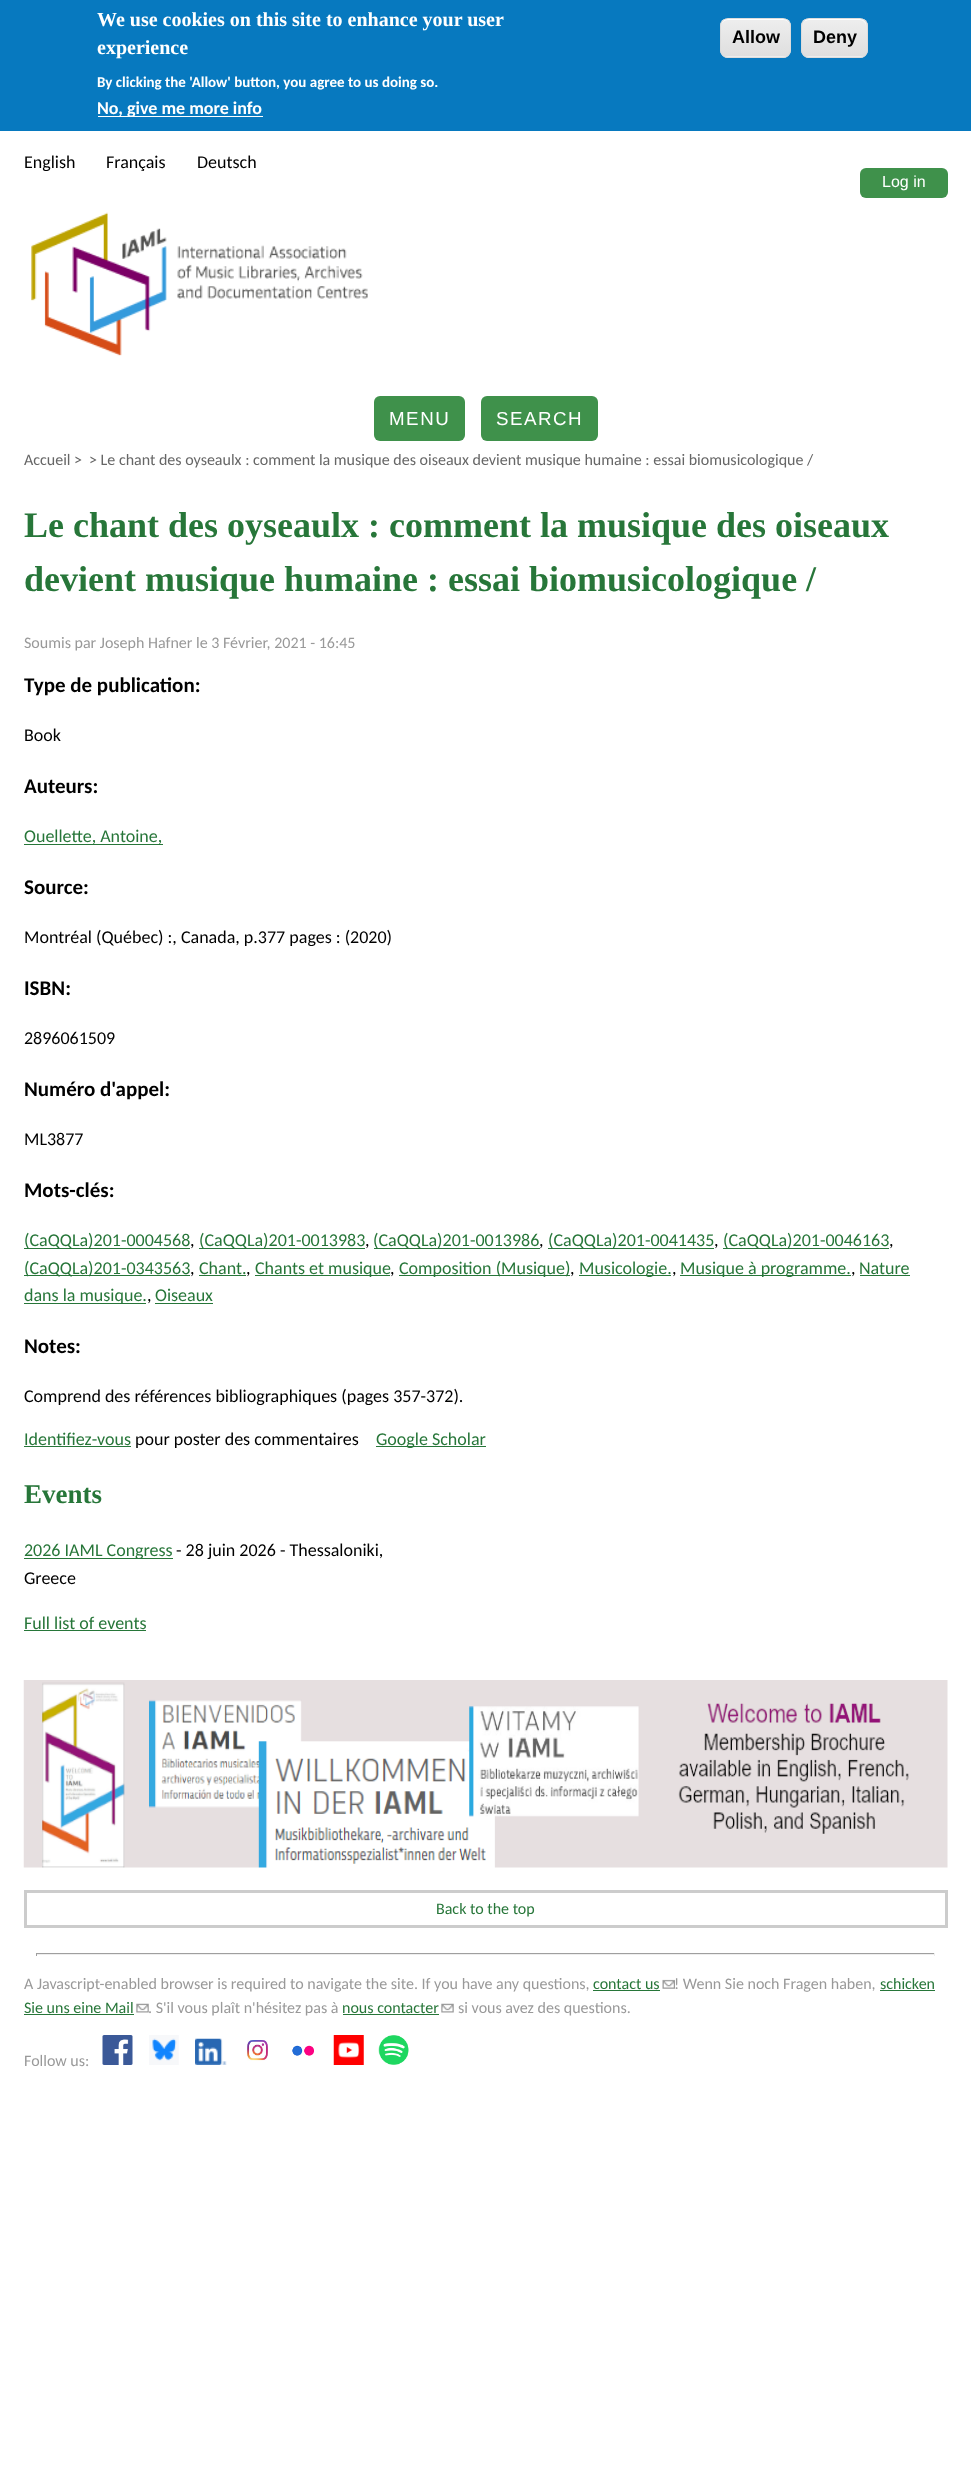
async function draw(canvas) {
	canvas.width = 971;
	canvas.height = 2473;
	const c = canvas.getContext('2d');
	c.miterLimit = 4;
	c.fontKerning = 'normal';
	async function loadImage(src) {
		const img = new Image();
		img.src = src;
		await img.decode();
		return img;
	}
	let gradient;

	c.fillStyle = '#fff';
	c.fillRect(0, 0, 971, 2473);
	c.fillStyle = '#0779bf';
	c.fillRect(0, 0, 971, 131);
	c.font = 'bold 20px Liberation Serif';
	c.fillStyle = '#fff';
	c.fillText('We use cookies on this site to enhance your user', 97, 26);
	c.fillText('experience', 97, 54);
	c.font = 'bold 15px Carlito';
	c.fillText('By clicking the \'Allow\' button, you agree to us doing so.', 97, 87);
	c.fillRect(98, 116, 165, 1);
	c.font = 'bold 18px Carlito';
	c.fillText('No, give me more info', 97, 114);
	c.save();
	c.beginPath();
	c.roundRect(720, 18, 71, 40, 8);
	c.clip();
	gradient = c.createLinearGradient(756, 19, 756, 56);
	gradient.addColorStop(0.05, '#ededed');
	gradient.addColorStop(1, '#dfdfdf');
	c.fillStyle = gradient;
	c.fillRect(720, 19, 71, 37);
	gradient = c.createLinearGradient(756, 56, 756, 94);
	gradient.addColorStop(0.05, '#ededed');
	gradient.addColorStop(1, '#dfdfdf');
	c.fillStyle = gradient;
	c.fillRect(720, 56, 71, 2);
	c.restore();
	c.beginPath();
	c.moveTo(728, 20);
	c.lineTo(784, 20);
	c.bezierCurveTo(787, 20, 790, 23, 790, 26);
	c.bezierCurveTo(790, 17, 781, 19, 774, 19);
	c.lineTo(736, 19);
	c.bezierCurveTo(730, 19, 721, 17, 721, 26);
	c.bezierCurveTo(721, 23, 724, 20, 728, 20);
	c.closePath();
	c.fill();
	c.beginPath();
	c.roundRect(720.5, 18.5, 70, 39, 7.5);
	c.strokeStyle = '#dcdcdc';
	c.stroke();
	c.font = 'bold 18px Liberation Sans';
	c.fillStyle = '#000';
	c.fillText('Allow', 732, 43);
	c.save();
	c.beginPath();
	c.roundRect(801, 18, 67, 40, 8);
	c.clip();
	gradient = c.createLinearGradient(834, 19, 834, 56);
	gradient.addColorStop(0.05, '#ededed');
	gradient.addColorStop(1, '#dfdfdf');
	c.fillStyle = gradient;
	c.fillRect(801, 19, 67, 37);
	gradient = c.createLinearGradient(834, 56, 834, 94);
	gradient.addColorStop(0.05, '#ededed');
	gradient.addColorStop(1, '#dfdfdf');
	c.fillStyle = gradient;
	c.fillRect(801, 56, 67, 2);
	c.restore();
	c.fillStyle = '#fff';
	c.beginPath();
	c.moveTo(809, 20);
	c.lineTo(860, 20);
	c.bezierCurveTo(863, 20, 866, 23, 866, 26);
	c.lineTo(866, 25);
	c.bezierCurveTo(866, 22, 863, 19, 860, 19);
	c.lineTo(809, 19);
	c.bezierCurveTo(807, 19, 805, 20, 804, 22);
	c.bezierCurveTo(805, 21, 807, 20, 809, 20);
	c.closePath();
	c.fill();
	c.beginPath();
	c.roundRect(801.5, 18.5, 66, 39, 7.5);
	c.stroke();
	c.fillStyle = '#000';
	c.fillText('Deny', 813, 43);
	c.font = '18px Carlito';
	for (const [text, x, y] of [
		['English', 24, 168],
		['Français', 106, 168],
		['Deutsch', 197, 168],
	]) {
		c.fillText(text, x, y);
	}
	c.fillStyle = '#3f914b';
	c.beginPath();
	c.roundRect(860, 168, 88, 30, 6);
	c.fill();
	c.font = '16px Liberation Sans';
	c.fillStyle = '#fff';
	c.fillText('Log in', 882, 187);
	c.drawImage(await loadImage('img1.png'), 31, 212, 337, 144);
	c.fillStyle = '#3f914b';
	c.beginPath();
	c.roundRect(374, 396, 91, 45, 6);
	c.fill();
	c.letterSpacing = '1.5px';
	c.font = '18.75px Liberation Sans';
	c.fillStyle = '#fff';
	c.fillText('MENU', 389, 425);
	c.fillStyle = '#3f914b';
	c.beginPath();
	c.roundRect(481, 396, 117, 45, 6);
	c.fill();
	c.fillStyle = '#fff';
	c.fillText('SEARCH', 496, 425);
	c.letterSpacing = '0px';
	c.font = '16px Carlito';
	c.fillStyle = '#666';
	c.fillText('Accueil >', 24, 465);
	c.fillText('> Le chant des oyseaulx : comment la musique des oiseaux devient musique humaine : essai biomusicologique /', 89, 465);
	c.font = 'bold 36px Liberation Serif';
	c.fillStyle = '#277639';
	c.fillText('Le chant des oyseaulx : comment la musique des oiseaux', 24, 537);
	c.fillText('devient musique humaine : essai biomusicologique /', 24, 591);
	c.font = '16px Carlito';
	c.fillStyle = '#999';
	c.fillText('Soumis par Joseph Hafner le 3 Février, 2021 - 16:45', 24, 648);
	c.font = 'bold 21px Carlito';
	c.fillStyle = '#000';
	c.fillText('Type de publication:', 24, 692);
	c.font = '18px Carlito';
	c.fillText('Book', 24, 741);
	c.font = 'bold 21px Carlito';
	c.fillText('Auteurs:', 24, 793);
	c.fillStyle = '#277639';
	c.fillRect(24, 844, 139, 1);
	c.font = '18px Carlito';
	c.fillText('Ouellette, Antoine,', 24, 842);
	c.font = 'bold 21px Carlito';
	c.fillStyle = '#000';
	c.fillText('Source:', 24, 894);
	c.font = '18px Carlito';
	c.fillText('Montréal (Québec) :, Canada, p.377 pages : (2020)', 24, 943);
	c.font = 'bold 21px Carlito';
	c.fillText('ISBN:', 24, 995);
	c.font = '18px Carlito';
	c.fillText('2896061509', 24, 1044);
	c.font = 'bold 21px Carlito';
	c.fillText('Numéro d\'appel:', 24, 1096);
	c.font = '18px Carlito';
	c.fillText('ML3877', 24, 1145);
	c.font = 'bold 21px Carlito';
	c.fillText('Mots-clés:', 24, 1197);
	c.fillStyle = '#277639';
	c.fillRect(24, 1248, 166, 1);
	c.font = '18px Carlito';
	c.fillText('(CaQQLa)201-0004568', 24, 1246);
	c.fillStyle = '#000';
	c.fillText(',', 190, 1246);
	c.fillStyle = '#277639';
	c.fillRect(199, 1248, 166, 1);
	c.fillText('(CaQQLa)201-0013983', 199, 1246);
	c.fillStyle = '#000';
	c.fillText(',', 365, 1246);
	c.fillStyle = '#277639';
	c.fillRect(374, 1248, 166, 1);
	c.fillText('(CaQQLa)201-0013986', 373, 1246);
	c.fillStyle = '#000';
	c.fillText(',', 539, 1246);
	c.fillStyle = '#277639';
	c.fillRect(548, 1248, 166, 1);
	c.fillText('(CaQQLa)201-0041435', 548, 1246);
	c.fillStyle = '#000';
	c.fillText(',', 714, 1246);
	c.fillStyle = '#277639';
	c.fillRect(723, 1248, 166, 1);
	c.fillText('(CaQQLa)201-0046163', 723, 1246);
	c.fillStyle = '#000';
	c.fillText(',', 889, 1246);
	c.fillStyle = '#277639';
	c.fillRect(24, 1275, 166, 1);
	c.fillText('(CaQQLa)201-0343563', 24, 1274);
	c.fillStyle = '#000';
	c.fillText(',', 190, 1274);
	c.fillStyle = '#277639';
	c.fillText('Chant.', 199, 1274);
	c.fillRect(199, 1275, 47, 1);
	c.fillStyle = '#000';
	c.fillText(',', 246, 1274);
	c.fillStyle = '#277639';
	c.fillRect(255, 1275, 135, 1);
	c.fillText('Chants et musique', 255, 1274);
	c.fillStyle = '#000';
	c.fillText(',', 390, 1274);
	c.fillStyle = '#277639';
	c.fillRect(399, 1275, 171, 1);
	c.fillText('Composition (Musique)', 399, 1274);
	c.fillStyle = '#000';
	c.fillText(',', 570, 1274);
	c.fillStyle = '#277639';
	c.fillRect(579, 1275, 92, 1);
	c.fillText('Musicologie.', 579, 1274);
	c.fillStyle = '#000';
	c.fillText(',', 672, 1274);
	c.fillStyle = '#277639';
	c.fillRect(680, 1275, 171, 1);
	c.fillText('Musique à programme.', 680, 1274);
	c.fillStyle = '#000';
	c.fillText(',', 851, 1274);
	c.fillStyle = '#277639';
	c.fillText('Nature', 859, 1274);
	c.fillRect(860, 1275, 50, 1);
	c.fillRect(24, 1303, 122, 1);
	c.fillText('dans la musique.', 24, 1301);
	c.fillStyle = '#000';
	c.fillText(',', 147, 1301);
	c.fillStyle = '#277639';
	c.fillText('Oiseaux', 155, 1301);
	c.fillRect(155, 1303, 58, 1);
	c.font = 'bold 21px Carlito';
	c.fillStyle = '#000';
	c.fillText('Notes:', 24, 1353);
	c.font = '18px Carlito';
	c.fillText('Comprend des références bibliographiques (pages 357-372).', 24, 1402);
	c.fillStyle = '#277639';
	c.fillText('Identifiez-vous', 24, 1445);
	c.fillRect(24, 1446, 107, 1);
	c.fillStyle = '#000';
	c.fillText('pour poster des commentaires', 135, 1445);
	c.fillStyle = '#277639';
	c.fillRect(376, 1446, 110, 1);
	c.fillText('Google Scholar', 376, 1445);
	c.font = 'bold 27px Liberation Serif';
	c.fillText('Events', 24, 1503);
	c.fillRect(24, 1558, 149, 1);
	c.font = '18px Carlito';
	c.fillText('2026 IAML Congress', 24, 1556);
	c.fillStyle = '#000';
	c.fillText('- 28 juin 2026 - Thessaloniki,', 176, 1556);
	c.fillText('Greece', 24, 1584);
	c.fillStyle = '#277639';
	c.fillText('Full list of events', 24, 1629);
	c.fillRect(24, 1630, 122, 1);
	c.drawImage(await loadImage('img2.png'), 23, 1680, 925, 188);
	c.strokeStyle = '#ccc';
	c.lineWidth = 3;
	c.strokeRect(25.5, 1891.5, 921, 35);
	c.font = '16px Carlito';
	c.fillText('Back to the top', 436, 1914);
	for (const [x, y, w, h, color] of [
		[36, 1953, 899, 1, '#9f9f9f'],
		[934, 1953, 1, 3, '#eee'],
		[36, 1954, 899, 1, '#eee'],
		[36, 1953, 1, 3, '#9f9f9f'],
	]) {
		c.fillStyle = color;
		c.fillRect(x, y, w, h);
	}
	c.fillStyle = '#999';
	c.fillText('A Javascript-enabled browser is required to navigate the site. If you have any questions,', 24, 1989);
	c.fillStyle = '#277639';
	c.fillText('contact us', 593, 1989);
	c.fillRect(593, 1990, 67, 1);
	c.drawImage(await loadImage('img3.png'), 662, 1979, 13, 10);
	c.fillStyle = '#999';
	c.fillText('! Wenn Sie noch Fragen haben,', 674, 1989);
	c.fillStyle = '#277639';
	c.fillText('schicken', 880, 1989);
	c.fillRect(880, 1990, 55, 1);
	c.fillText('Sie uns eine Mail', 24, 2013);
	c.fillRect(24, 2014, 110, 1);
	c.drawImage(await loadImage('img4.png'), 136, 2003, 13, 10);
	c.fillStyle = '#999';
	c.fillText('. S\'il vous plaît n\'hésitez pas à', 148, 2013);
	c.fillStyle = '#277639';
	c.fillText('nous contacter', 342, 2013);
	c.fillRect(343, 2014, 96, 1);
	c.drawImage(await loadImage('img5.png'), 441, 2003, 13, 10);
	c.fillStyle = '#999';
	c.fillText('si vous avez des questions.', 458, 2013);
	c.drawImage(await loadImage('img6.png'), 102, 2035, 31, 30);
	c.drawImage(await loadImage('img7.png'), 149, 2035, 30, 30);
	c.drawImage(await loadImage('img8.png'), 195, 2038, 32, 27);
	c.drawImage(await loadImage('img9.png'), 247, 2040, 21, 21);
	c.drawImage(await loadImage('img10.png'), 292, 2045, 22, 11);
	c.drawImage(await loadImage('img11.png'), 333, 2035, 31, 30);
	c.drawImage(await loadImage('img12.png'), 378, 2035, 31, 30);
	c.fillText('Follow us:', 24, 2066);
}

draw(document.querySelector('canvas'));
